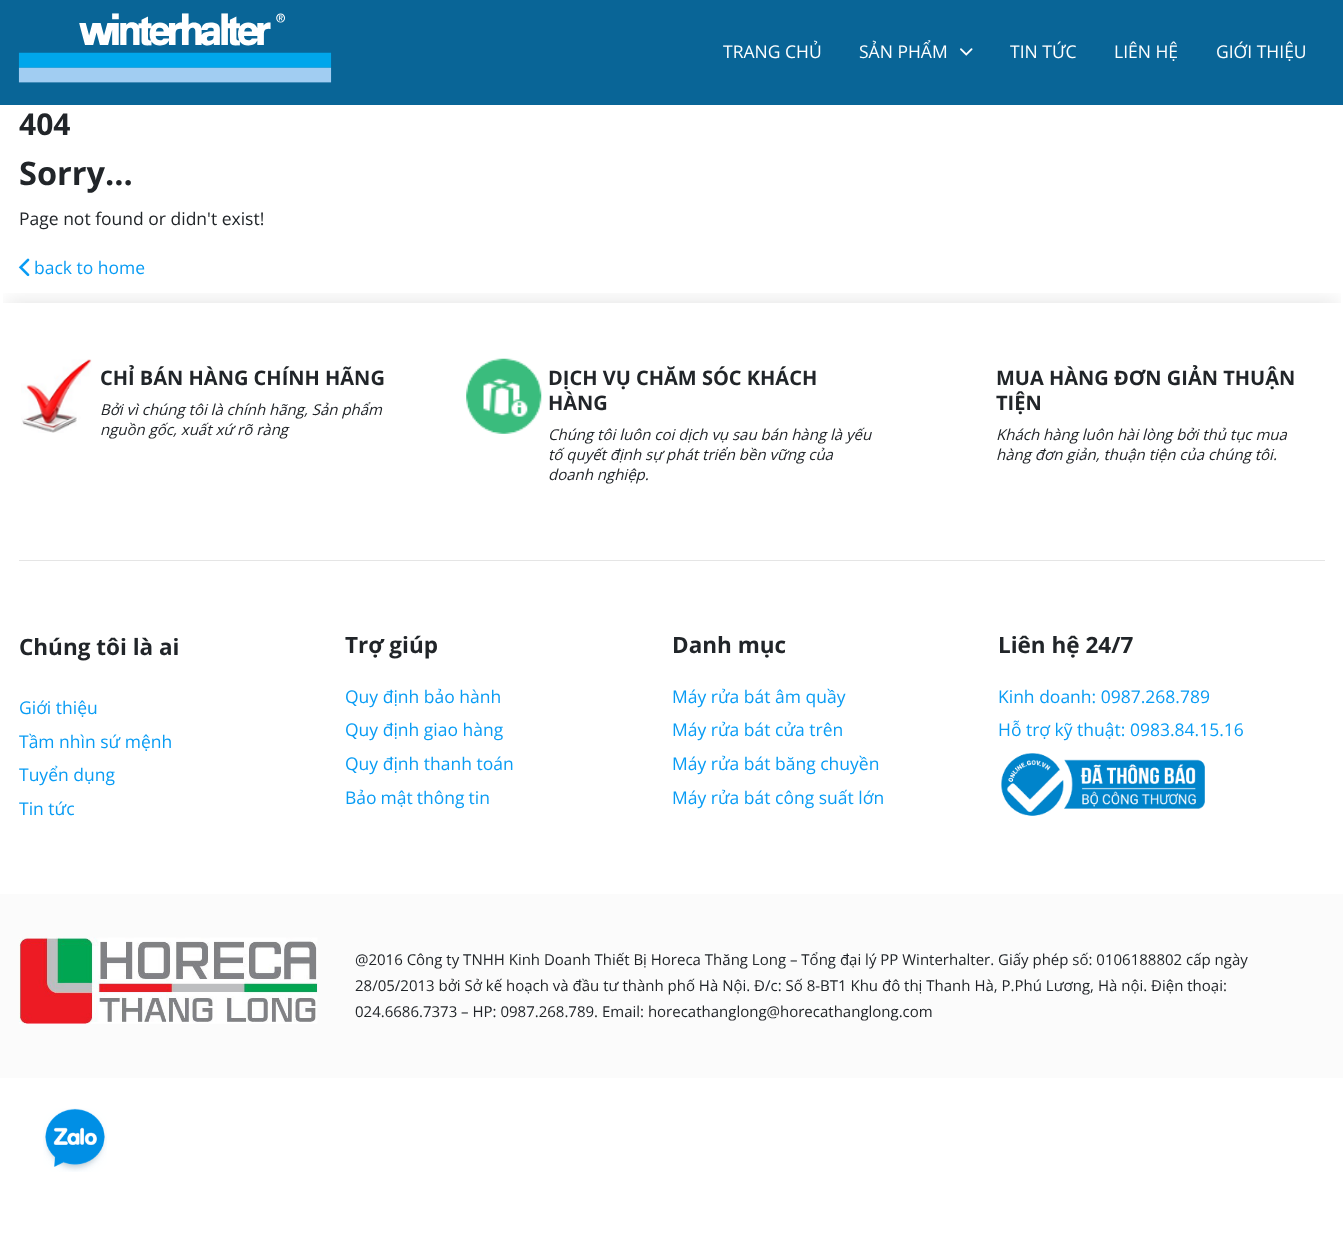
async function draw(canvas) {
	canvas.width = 1343;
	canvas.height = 1250;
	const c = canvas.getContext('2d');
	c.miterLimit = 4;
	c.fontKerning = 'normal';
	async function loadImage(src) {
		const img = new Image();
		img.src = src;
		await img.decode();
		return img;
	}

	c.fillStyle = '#fff';
	c.fillRect(0, 0, 1343, 1250);
	c.fillStyle = '#096597';
	c.fillRect(0, 0, 1343, 105);
	c.drawImage(await loadImage('img1.png'), 18, 13, 314, 70);
	c.font = '17.5px Open Sans';
	c.fillStyle = '#fff';
	c.fillText('TRANG CHỦ', 723, 58);
	c.fillText('SẢN PHẨM', 859, 58);
	c.drawImage(await loadImage('img2.png'), 960, 48, 13, 8);
	for (const [text, x, y] of [
		['TIN TỨC', 1010, 58],
		['LIÊN HỆ', 1114, 58],
		['GIỚI THIỆU', 1216, 58],
	]) {
		c.fillText(text, x, y);
	}
	c.font = 'bold 30px Open Sans';
	c.fillStyle = '#212529';
	c.fillText('404', 19, 135);
	c.font = 'bold 32.5px Open Sans';
	c.fillText('Sorry...', 19, 185);
	c.font = '17.5px Open Sans';
	c.fillText('Page not found or didn\'t exist!', 19, 225);
	c.save();
	c.beginPath();
	c.rect(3, 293, 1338, 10);
	c.clip();
	c.fillStyle = '#0000001a';
	c.filter = 'blur(10px)';
	c.beginPath();
	c.rect(6, 301, 1332, 247);
	c.fill();
	c.filter = 'none';
	c.restore();
	c.drawImage(await loadImage('img3.png'), 18, 258, 12, 19);
	c.fillStyle = '#099cf4';
	c.fillText('back to home', 34, 274);
	c.fillStyle = '#e5e5e5';
	c.fillRect(19, 560, 1306, 1);
	c.drawImage(await loadImage('img4.png'), 21, 359, 71, 74);
	c.font = 'bold 20px Open Sans';
	c.fillStyle = '#212529';
	c.fillText('CHỈ BÁN HÀNG CHÍNH HÃNG', 100, 385);
	c.font = 'italic 15px Open Sans';
	c.fillText('Bởi vì chúng tôi là chính hãng, Sản phẩm', 100, 415);
	c.fillText('nguồn gốc, xuất xứ rõ ràng', 100, 435);
	c.drawImage(await loadImage('img5.png'), 466, 358, 76, 76);
	c.font = 'bold 20px Open Sans';
	c.fillText('DỊCH VỤ CHĂM SÓC KHÁCH', 548, 385);
	c.fillText('HÀNG', 548, 410);
	c.font = 'italic 15px Open Sans';
	for (const [text, x, y] of [
		['Chúng tôi luôn coi dịch vụ sau bán hàng là yếu', 548, 440],
		['tố quyết định sự phát triển bền vững của', 548, 460],
		['doanh nghiệp.', 548, 480],
	]) {
		c.fillText(text, x, y);
	}
	c.font = 'bold 20px Open Sans';
	c.fillText('MUA HÀNG ĐƠN GIẢN THUẬN', 996, 385);
	c.fillText('TIỆN', 996, 410);
	c.font = 'italic 15px Open Sans';
	c.fillText('Khách hàng luôn hài lòng bởi thủ tục mua', 996, 440);
	c.fillText('hàng đơn giản, thuận tiện của chúng tôi.', 996, 460);
	c.font = 'bold 22.5px Open Sans';
	c.fillText('Chúng tôi là ai', 19, 655);
	c.font = '17.5px Open Sans';
	c.fillStyle = '#099cf4';
	for (const [text, x, y] of [
		['Giới thiệu', 19, 714],
		['Tầm nhìn sứ mệnh', 19, 748],
		['Tuyển dụng', 19, 781],
		['Tin tức', 19, 815],
	]) {
		c.fillText(text, x, y);
	}
	c.font = 'bold 22.5px Open Sans';
	c.fillStyle = '#212529';
	c.fillText('Trợ giúp', 345, 653);
	c.font = '17.5px Open Sans';
	c.fillStyle = '#099cf4';
	for (const [text, x, y] of [
		['Quy định bảo hành', 345, 703],
		['Quy định giao hàng', 345, 736],
		['Quy định thanh toán', 345, 770],
	]) {
		c.fillText(text, x, y);
	}
	c.wordSpacing = '-0.5px';
	c.fillText('Bảo mật thông tin', 345, 804);
	c.wordSpacing = '0px';
	c.font = 'bold 22.5px Open Sans';
	c.fillStyle = '#212529';
	c.fillText('Danh mục', 672, 653);
	c.font = '17.5px Open Sans';
	c.fillStyle = '#099cf4';
	for (const [text, x, y] of [
		['Máy rửa bát âm quầy', 672, 703],
		['Máy rửa bát cửa trên', 672, 736],
		['Máy rửa bát băng chuyền', 672, 770],
		['Máy rửa bát công suất lớn', 672, 804],
	]) {
		c.fillText(text, x, y);
	}
	c.font = 'bold 22.5px Open Sans';
	c.fillStyle = '#212529';
	c.fillText('Liên hệ 24/7', 998, 653);
	c.font = '17.5px Open Sans';
	c.fillStyle = '#099cf4';
	c.fillText('Kinh doanh: 0987.268.789', 998, 703);
	c.fillText('Hỗ trợ kỹ thuật: 0983.84.15.16', 998, 736);
	c.drawImage(await loadImage('img6.png'), 1001, 753, 204, 63);
	c.fillStyle = '#fbfbfb';
	c.fillRect(0, 894, 1343, 184);
	c.drawImage(await loadImage('img7.png'), 19, 937, 299, 87);
	c.font = '15px Open Sans';
	c.fillStyle = '#212529';
	for (const [text, x, y] of [
		['@2016 Công ty TNHH Kinh Doanh Thiết Bị Horeca Thăng Long – Tổng đại lý PP Winterhalter. Giấy phép số: 0106188802 cấp ngày', 355, 965],
		['28/05/2013 bởi Sở kế hoạch và đầu tư thành phố Hà Nội. Đ/c: Số 8-BT1 Khu đô thị Thanh Hà, P.Phú Lương, Hà nội. Điện thoại:', 355, 991],
		['024.6686.7373 – HP: 0987.268.789. Email: horecathanglong@horecathanglong.com', 355, 1017],
	]) {
		c.fillText(text, x, y);
	}
	c.drawImage(await loadImage('img8.png'), 43, 1108, 64, 64);
}

draw(document.querySelector('canvas'));
